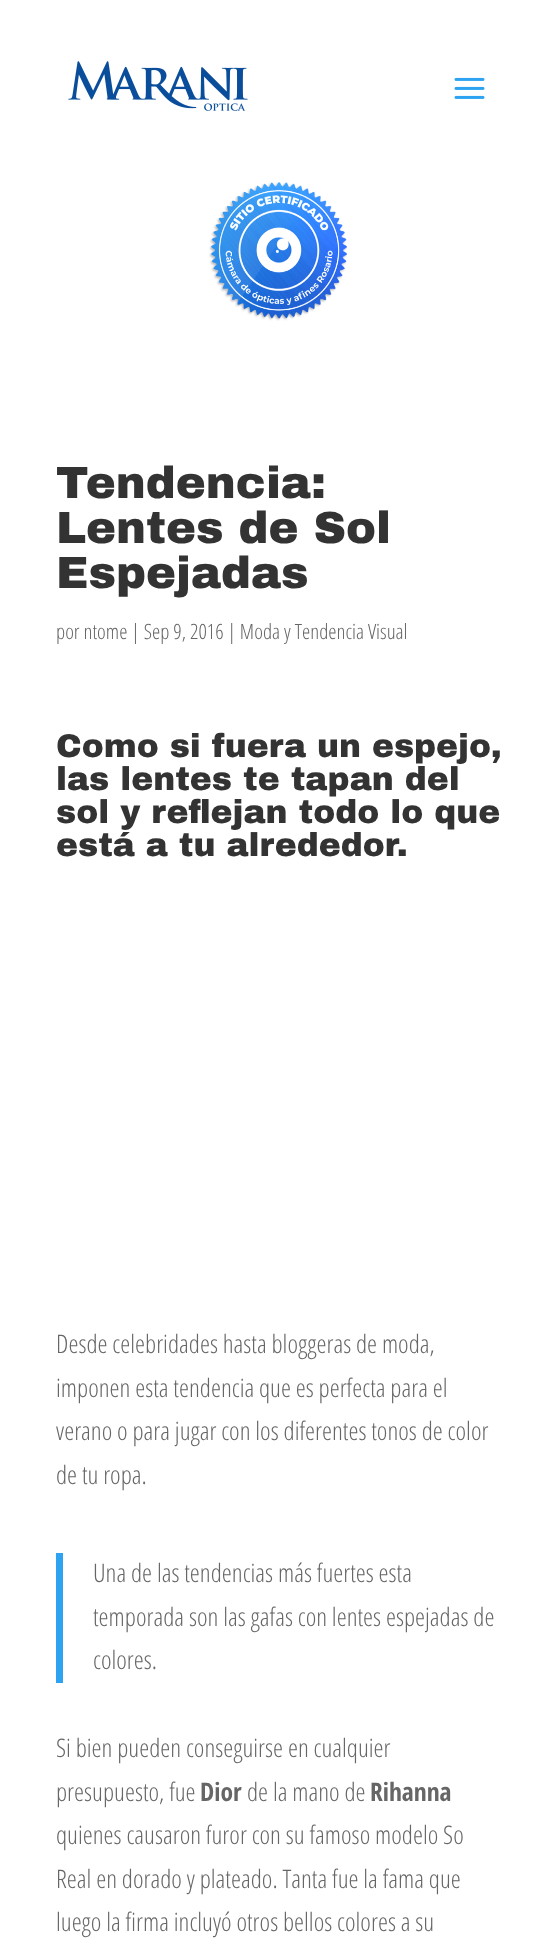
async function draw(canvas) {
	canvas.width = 557;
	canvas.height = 1944;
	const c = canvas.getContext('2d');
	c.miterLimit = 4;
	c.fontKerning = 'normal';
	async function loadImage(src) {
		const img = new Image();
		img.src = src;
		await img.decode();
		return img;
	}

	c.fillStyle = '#fff';
	c.fillRect(0, 0, 557, 1944);
	c.drawImage(await loadImage('img1.png'), 68, 61, 180, 50);
	c.drawImage(await loadImage('img2.png'), 454, 77, 31, 22);
	c.drawImage(await loadImage('img3.png'), 209, 182, 138, 139);
	c.font = '900 45px Archivo Black';
	c.fillStyle = '#333';
	for (const [text, x, y] of [
		['Tendencia:', 56, 498],
		['Lentes de Sol', 56, 543],
		['Espejadas', 56, 588],
	]) {
		c.fillText(text, x, y);
	}
	c.font = '300 21px Open Sans Condensed';
	c.fillStyle = '#666';
	c.fillText('por ntome | Sep 9, 2016 | Moda y Tendencia Visual', 56, 639);
	c.font = '900 33px Archivo Black';
	c.fillStyle = '#333';
	for (const [text, x, y] of [
		['Como si fuera un espejo,', 56, 757],
		['las lentes te tapan del', 56, 790],
		['sol y reflejan todo lo que', 56, 823],
		['está a tu alrededor.', 56, 856],
	]) {
		c.fillText(text, x, y);
	}
	c.font = '300 25.5px Open Sans Condensed';
	c.fillStyle = '#666';
	for (const [text, x, y] of [
		['Desde celebridades hasta bloggeras de moda,', 56, 1353],
		['imponen esta tendencia que es perfecta para el', 56, 1397],
		['verano o para jugar con los diferentes tonos de color', 56, 1440],
		['de tu ropa.', 56, 1484],
	]) {
		c.fillText(text, x, y);
	}
	c.fillStyle = '#2ea3f2';
	c.fillRect(56, 1553, 7, 130);
	c.fillStyle = '#666';
	for (const [text, x, y] of [
		['Una de las tendencias más fuertes esta', 93, 1582],
		['temporada son las gafas con lentes espejadas de', 93, 1626],
		['colores.', 93, 1669],
		['Si bien pueden conseguirse en cualquier', 56, 1757],
		['presupuesto, fue', 56, 1801],
	]) {
		c.fillText(text, x, y);
	}
	c.font = 'bold 25.5px Open Sans Condensed';
	c.fillText('Dior', 200, 1801);
	c.font = '300 25.5px Open Sans Condensed';
	c.fillText('de la mano de', 247, 1801);
	c.font = 'bold 25.5px Open Sans Condensed';
	c.fillText('Rihanna', 370, 1801);
	c.font = '300 25.5px Open Sans Condensed';
	for (const [text, x, y] of [
		['quienes causaron furor con su famoso modelo So', 56, 1844],
		['Real en dorado y plateado. Tanta fue la fama que', 56, 1888],
		['luego la firma incluyó otros bellos colores a su', 56, 1931],
	]) {
		c.fillText(text, x, y);
	}
}

draw(document.querySelector('canvas'));
